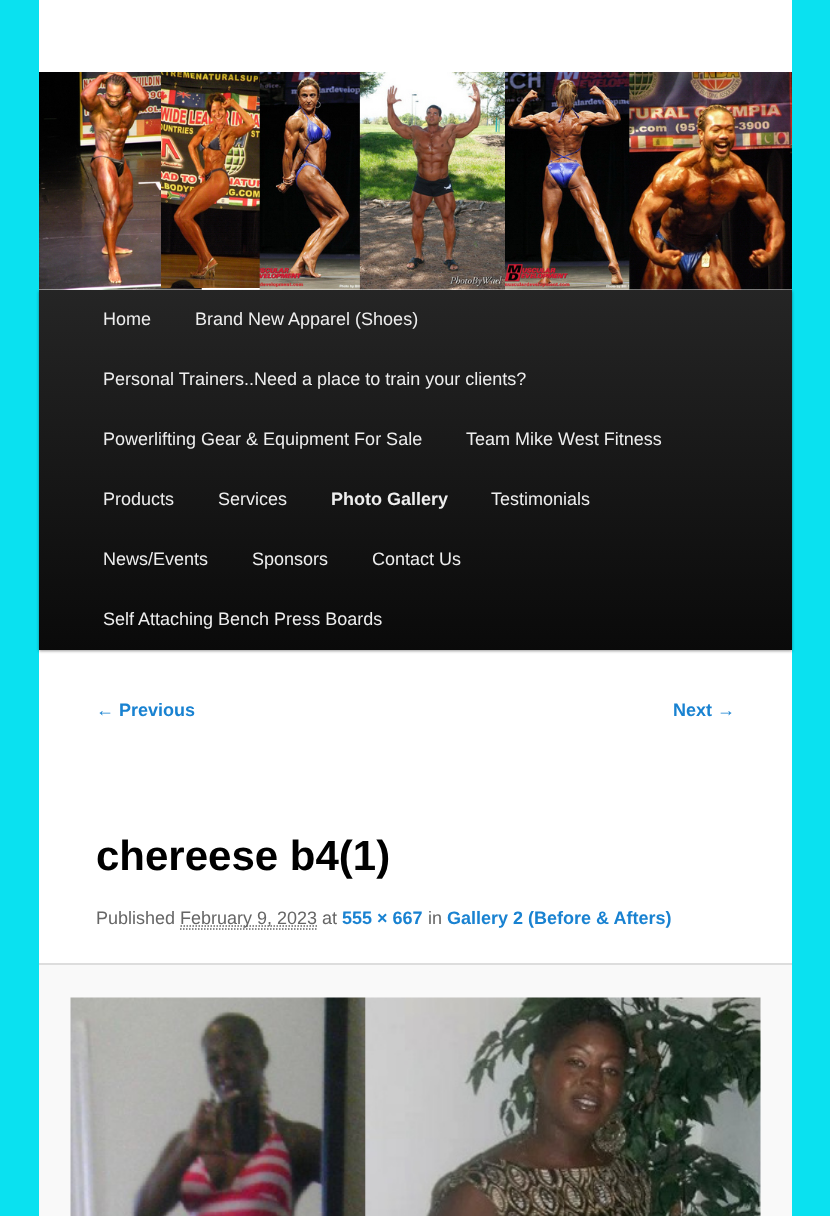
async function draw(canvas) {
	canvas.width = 830;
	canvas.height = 1216;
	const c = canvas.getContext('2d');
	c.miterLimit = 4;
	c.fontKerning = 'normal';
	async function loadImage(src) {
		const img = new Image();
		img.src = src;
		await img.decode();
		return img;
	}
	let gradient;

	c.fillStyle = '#0ae1f0';
	c.fillRect(0, 0, 830, 1216);
	c.fillStyle = '#fff';
	c.fillRect(39, 0, 753, 963);
	c.fillStyle = '#00000066';
	c.filter = 'blur(1.5px)';
	c.beginPath();
	c.rect(39, 291, 753, 360);
	c.fill();
	c.filter = 'none';
	c.drawImage(await loadImage('img1.png'), 39, 72, 753, 218);
	gradient = c.createLinearGradient(416, 289, 416, 650);
	gradient.addColorStop(0, '#252525');
	gradient.addColorStop(1, '#0a0a0a');
	c.fillStyle = gradient;
	c.fillRect(39, 290, 753, 360);
	c.font = '18px Liberation Sans';
	c.fillStyle = '#eee';
	for (const [text, x, y] of [
		['Home', 103, 325],
		['Brand New Apparel (Shoes)', 195, 325],
		['Personal Trainers..Need a place to train your clients?', 103, 385],
		['Powerlifting Gear & Equipment For Sale', 103, 445],
		['Team Mike West Fitness', 466, 445],
		['Products', 103, 505],
		['Services', 218, 505],
	]) {
		c.fillText(text, x, y);
	}
	c.font = 'bold 18px Liberation Sans';
	c.fillText('Photo Gallery', 331, 505);
	c.font = '18px Liberation Sans';
	for (const [text, x, y] of [
		['Testimonials', 491, 505],
		['News/Events', 103, 565],
		['Sponsors', 252, 565],
		['Contact Us', 372, 565],
		['Self Attaching Bench Press Boards', 103, 625],
	]) {
		c.fillText(text, x, y);
	}
	c.font = 'bold 18px Liberation Sans';
	c.fillStyle = '#1982d1';
	c.fillText('← Previous', 96, 716);
	c.fillText('Next →', 673, 716);
	c.font = 'bold 42px Liberation Sans';
	c.fillStyle = '#000';
	c.fillText('chereese b4(1)', 96, 870);
	c.font = '18px Liberation Sans';
	c.fillStyle = '#666';
	c.fillText('Published', 96, 924);
	c.beginPath();
	c.moveTo(180.5, 926);
	c.lineTo(317.5, 926);
	c.strokeStyle = '#666';
	c.lineWidth = 1.5;
	c.setLineDash([1.5, 1.5]);
	c.stroke();
	c.fillText('February 9, 2023 at', 180, 924);
	c.beginPath();
	c.moveTo(180, 929);
	c.lineTo(318, 929);
	c.stroke();
	c.font = 'bold 18px Liberation Sans';
	c.fillStyle = '#1982d1';
	c.fillText('555 × 667', 342, 924);
	c.font = '18px Liberation Sans';
	c.fillStyle = '#666';
	c.fillText('in', 428, 924);
	c.font = 'bold 18px Liberation Sans';
	c.fillStyle = '#1982d1';
	c.fillText('Gallery 2 (Before & Afters)', 447, 924);
	c.fillStyle = '#f9f9f9';
	c.fillRect(39, 965, 753, 251);
	c.fillStyle = '#ddd';
	c.fillRect(39, 963, 753, 2);
	c.drawImage(await loadImage('img2.png'), 70, 997, 691, 219);
}

draw(document.querySelector('canvas'));
